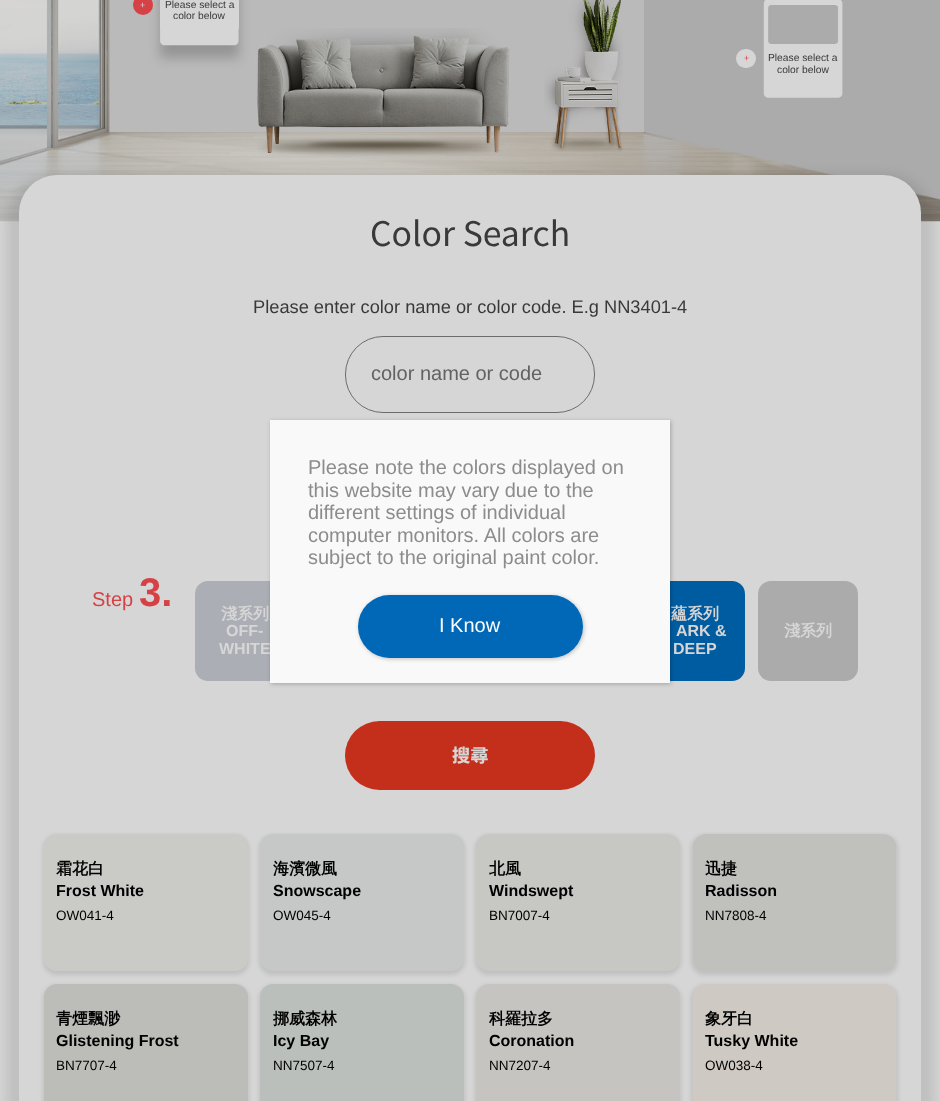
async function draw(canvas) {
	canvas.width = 940;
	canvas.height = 1101;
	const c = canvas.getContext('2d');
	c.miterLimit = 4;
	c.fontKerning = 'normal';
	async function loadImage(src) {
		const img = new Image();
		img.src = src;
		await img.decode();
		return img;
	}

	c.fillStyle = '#d6d6d6';
	c.fillRect(0, 0, 940, 1101);
	c.fillStyle = '#bababa';
	c.fillRect(109, 0, 535, 133);
	c.fillStyle = '#ababab';
	c.fillRect(644, 0, 296, 201);
	c.drawImage(await loadImage('img1.png'), 0, 0, 940, 222);
	c.drawImage(await loadImage('img3.png'), 257, 28, 253, 129);
	c.fillStyle = '#00000033';
	c.filter = 'blur(6px)';
	c.beginPath();
	c.rect(160, -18, 79, 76);
	c.fill();
	c.filter = 'none';
	c.fillStyle = '#d64145';
	c.beginPath();
	c.arc(143, 5, 10, 0, 2 * Math.PI);
	c.fill();
	c.font = '9px Liberation Sans';
	c.fillStyle = '#d6d6d6';
	c.fillText('+', 140, 8);
	c.drawImage(await loadImage('img2.png'), 160, 28, 79, 18);
	c.beginPath();
	c.moveTo(164, -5);
	c.lineTo(235, -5);
	c.bezierCurveTo(237, -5, 239, -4, 239, -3);
	c.lineTo(239, 28);
	c.bezierCurveTo(239, 29, 237, 30, 235, 30);
	c.lineTo(164, 30);
	c.bezierCurveTo(162, 30, 160, 29, 160, 28);
	c.lineTo(160, -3);
	c.bezierCurveTo(160, -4, 162, -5, 164, -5);
	c.closePath();
	c.fill();
	c.font = '10.25px Liberation Sans';
	c.fillStyle = '#393939';
	c.fillText('Please select a', 165, 8);
	c.fillText('color below', 173, 19);
	c.drawImage(await loadImage('img4.png'), 544, 0, 79, 152);
	c.drawImage(await loadImage('img5.png'), 763, 0, 80, 98);
	c.fillStyle = '#d6d6d6';
	c.beginPath();
	c.roundRect(736, 49, 20, 19, 9.5);
	c.fill();
	c.font = '9px Liberation Sans';
	c.fillStyle = '#d64145';
	c.fillText('+', 744, 61);
	c.font = '10.25px Liberation Sans';
	c.fillStyle = '#393939';
	c.fillText('Please select a', 768, 61);
	c.fillText('color below', 777, 73);
	c.fillStyle = '#0000001a';
	c.filter = 'blur(6px)';
	c.beginPath();
	c.roundRect(6, 175, 928, 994, 50);
	c.fill();
	c.filter = 'none';
	c.fillStyle = '#d6d6d6';
	c.beginPath();
	c.roundRect(19, 175, 902, 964, 38);
	c.fill();
	c.font = '33.75px Noto Sans HK';
	c.fillStyle = '#393939';
	c.fillText('Color Search', 370, 246);
	c.font = '18.25px Liberation Sans';
	c.fillText('Please enter color name or color code. E.g NN3401-4', 253, 313);
	c.beginPath();
	c.roundRect(345.5, 336.5, 249, 76, 37.5);
	c.strokeStyle = '#6c6c6c';
	c.stroke();
	c.font = '20px Liberation Sans';
	c.fillStyle = '#626262';
	c.fillText('color name or code', 371, 380);
	c.fillStyle = '#d64145';
	c.fillText('Step', 92, 606);
	c.font = 'bold 40px Liberation Sans';
	c.fillText('3.', 139, 606);
	c.fillStyle = '#abaeb4';
	c.beginPath();
	c.roundRect(195, 581, 100, 100, 13);
	c.fill();
	c.font = 'bold 16px WenQuanYi Zen Hei';
	c.fillStyle = '#d6d6d6';
	c.fillText('淺系列', 221, 619);
	c.font = 'bold 16px Liberation Sans';
	c.fillText('OFF-', 226, 636);
	c.fillText('WHITE', 219, 654);
	c.fillStyle = '#005ca0';
	c.beginPath();
	c.roundRect(645, 581, 100, 100, 13);
	c.fill();
	c.font = 'bold 16px WenQuanYi Zen Hei';
	c.fillStyle = '#d6d6d6';
	c.fillText('蘊系列', 671, 619);
	c.font = 'bold 16px Liberation Sans';
	c.fillText('ARK &', 676, 636);
	c.fillText('DEEP', 673, 654);
	c.fillStyle = '#ababab';
	c.beginPath();
	c.roundRect(758, 581, 100, 100, 13);
	c.fill();
	c.font = 'bold 16px WenQuanYi Zen Hei';
	c.fillStyle = '#d6d6d6';
	c.fillText('淺系列', 784, 636);
	c.fillStyle = '#c32f1b';
	c.beginPath();
	c.roundRect(345, 721, 250, 69, 34.5);
	c.fill();
	c.font = '800 18.25px Noto Sans HK';
	c.fillStyle = '#d6d6d6';
	c.fillText('搜尋', 452, 762);
	c.fillStyle = '#0000001a';
	c.filter = 'blur(2px)';
	c.beginPath();
	c.roundRect(43, 835, 206, 140, 14);
	c.fill();
	c.filter = 'none';
	c.fillStyle = '#cacac7';
	c.beginPath();
	c.roundRect(44, 834, 204, 137, 13);
	c.fill();
	c.font = 'bold 16px WenQuanYi Zen Hei';
	c.fillStyle = '#000';
	c.fillText('霜花白', 56, 874);
	c.font = 'bold 16px Liberation Sans';
	c.fillText('Frost White', 56, 896);
	c.font = '13.5px Liberation Sans';
	c.fillText('OW041-4', 56, 920);
	c.fillStyle = '#0000001a';
	c.filter = 'blur(2px)';
	c.beginPath();
	c.roundRect(259, 835, 206, 140, 14);
	c.fill();
	c.filter = 'none';
	c.fillStyle = '#c5c8c6';
	c.beginPath();
	c.roundRect(260, 834, 204, 137, 13);
	c.fill();
	c.font = 'bold 16px WenQuanYi Zen Hei';
	c.fillStyle = '#000';
	c.fillText('海濱微風', 273, 874);
	c.font = 'bold 16px Liberation Sans';
	c.fillText('Snowscape', 273, 896);
	c.font = '13.5px Liberation Sans';
	c.fillText('OW045-4', 273, 920);
	c.fillStyle = '#0000001a';
	c.filter = 'blur(2px)';
	c.beginPath();
	c.roundRect(475, 835, 206, 140, 14);
	c.fill();
	c.filter = 'none';
	c.fillStyle = '#c7c8c3';
	c.beginPath();
	c.roundRect(476, 834, 204, 137, 13);
	c.fill();
	c.font = 'bold 16px WenQuanYi Zen Hei';
	c.fillStyle = '#000';
	c.fillText('北風', 489, 874);
	c.font = 'bold 16px Liberation Sans';
	c.fillText('Windswept', 489, 896);
	c.font = '13.5px Liberation Sans';
	c.fillText('BN7007-4', 489, 920);
	c.fillStyle = '#0000001a';
	c.filter = 'blur(2px)';
	c.beginPath();
	c.roundRect(691, 835, 207, 140, 14);
	c.fill();
	c.filter = 'none';
	c.fillStyle = '#c0c1bd';
	c.beginPath();
	c.roundRect(693, 834, 203, 137, 13);
	c.fill();
	c.font = 'bold 16px WenQuanYi Zen Hei';
	c.fillStyle = '#000';
	c.fillText('迅捷', 705, 874);
	c.font = 'bold 16px Liberation Sans';
	c.fillText('Radisson', 705, 896);
	c.font = '13.5px Liberation Sans';
	c.fillText('NN7808-4', 705, 920);
	c.fillStyle = '#0000001a';
	c.filter = 'blur(2px)';
	c.beginPath();
	c.roundRect(43, 985, 206, 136, 14);
	c.fill();
	c.filter = 'none';
	c.fillStyle = '#bcbdb9';
	c.beginPath();
	c.roundRect(44, 984, 204, 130, 13);
	c.fill();
	c.font = 'bold 16px WenQuanYi Zen Hei';
	c.fillStyle = '#000';
	c.fillText('青煙飄渺', 56, 1024);
	c.font = 'bold 16px Liberation Sans';
	c.fillText('Glistening Frost', 56, 1046);
	c.font = '13.5px Liberation Sans';
	c.fillText('BN7707-4', 56, 1070);
	c.fillStyle = '#0000001a';
	c.filter = 'blur(2px)';
	c.beginPath();
	c.roundRect(259, 985, 206, 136, 14);
	c.fill();
	c.filter = 'none';
	c.fillStyle = '#bbbfbb';
	c.beginPath();
	c.roundRect(260, 984, 204, 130, 13);
	c.fill();
	c.font = 'bold 16px WenQuanYi Zen Hei';
	c.fillStyle = '#000';
	c.fillText('挪威森林', 273, 1024);
	c.font = 'bold 16px Liberation Sans';
	c.fillText('Icy Bay', 273, 1046);
	c.font = '13.5px Liberation Sans';
	c.fillText('NN7507-4', 273, 1070);
	c.fillStyle = '#0000001a';
	c.filter = 'blur(2px)';
	c.beginPath();
	c.roundRect(475, 985, 206, 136, 14);
	c.fill();
	c.filter = 'none';
	c.fillStyle = '#c5c4c1';
	c.beginPath();
	c.roundRect(476, 984, 204, 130, 13);
	c.fill();
	c.font = 'bold 16px WenQuanYi Zen Hei';
	c.fillStyle = '#000';
	c.fillText('科羅拉多', 489, 1024);
	c.font = 'bold 16px Liberation Sans';
	c.fillText('Coronation', 489, 1046);
	c.font = '13.5px Liberation Sans';
	c.fillText('NN7207-4', 489, 1070);
	c.fillStyle = '#0000001a';
	c.filter = 'blur(2px)';
	c.beginPath();
	c.roundRect(691, 985, 207, 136, 14);
	c.fill();
	c.filter = 'none';
	c.fillStyle = '#cecac3';
	c.beginPath();
	c.roundRect(693, 984, 203, 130, 13);
	c.fill();
	c.font = 'bold 16px WenQuanYi Zen Hei';
	c.fillStyle = '#000';
	c.fillText('象牙白', 705, 1024);
	c.font = 'bold 16px Liberation Sans';
	c.fillText('Tusky White', 705, 1046);
	c.font = '13.5px Liberation Sans';
	c.fillText('OW038-4', 705, 1070);
	c.fillStyle = '#0202023b';
	c.filter = 'blur(2px)';
	c.beginPath();
	c.rect(271, 421, 400, 263);
	c.fill();
	c.filter = 'none';
	c.fillStyle = '#f9f9f9';
	c.fillRect(270, 420, 400, 263);
	c.font = '20px Liberation Sans';
	c.fillStyle = '#8c8c8c';
	for (const [text, x, y] of [
		['Please note the colors displayed on', 308, 474],
		['this website may vary due to the', 308, 497],
		['different settings of individual', 308, 519],
		['computer monitors. All colors are', 308, 542],
		['subject to the original paint color.', 308, 564],
	]) {
		c.fillText(text, x, y);
	}
	c.fillStyle = '#0202023b';
	c.filter = 'blur(2px)';
	c.beginPath();
	c.roundRect(359, 596, 225, 63, 31.5);
	c.fill();
	c.filter = 'none';
	c.fillStyle = '#0068b7';
	c.beginPath();
	c.roundRect(358, 595, 225, 63, 31.5);
	c.fill();
	c.fillStyle = '#fff';
	c.fillText('I Know', 439, 632);
}

draw(document.querySelector('canvas'));
